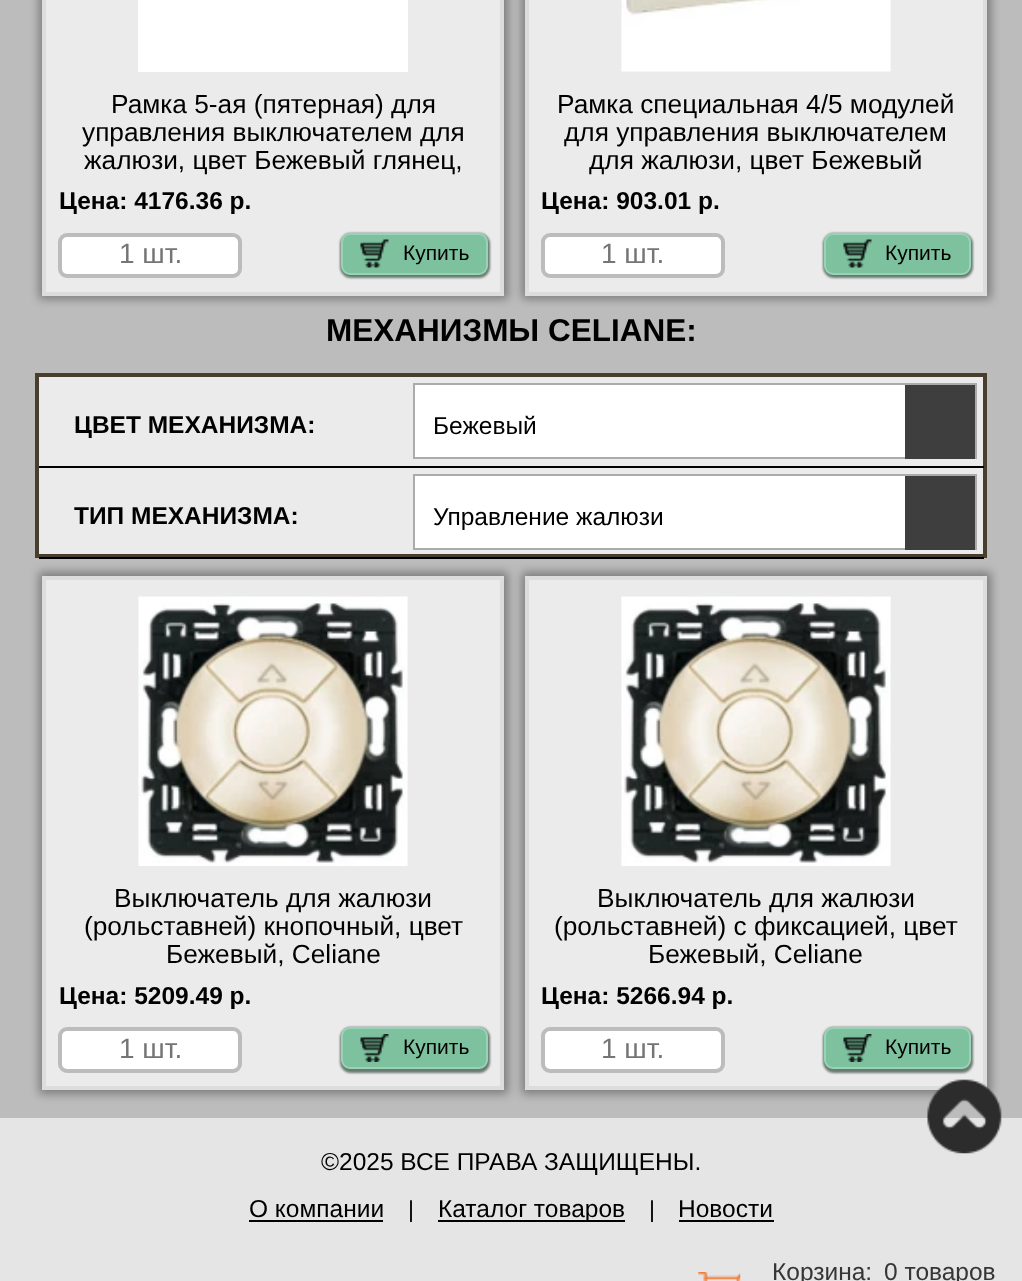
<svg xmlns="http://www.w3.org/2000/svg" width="1022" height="1281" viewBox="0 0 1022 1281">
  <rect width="100%" height="100%" fill="#bcbcbc"/>
  <path d="M39 -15h469v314H39z" fill="#00000057" filter="blur(5px)"/>
  <path d="M44 -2h458v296H44z" fill="#ebebeb" stroke="#ddd" stroke-width="4"/>
  <path d="M138 0h270v72H138z" fill="#fff"/>
  <rect x="60" y="235" width="180" height="41" rx="7" fill="#fff" stroke="#bcbcbc" stroke-width="4"/>
  <rect x="340" y="233" width="150" height="45" rx="11" fill="#687a71" filter="blur(1px)"/>
  <rect x="342" y="234" width="145" height="40" rx="8" fill="#7dc19f" stroke="#99d3b6" stroke-width="2"/>
  <image x="360" y="239" width="29" height="29" href="img/1.png"/>
  <path d="M522 -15h469v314H522z" fill="#00000057" filter="blur(5px)"/>
  <path d="M527 -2h458v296H527z" fill="#ebebeb" stroke="#ddd" stroke-width="4"/>
  <image x="621" y="0" width="270" height="72" href="img/2.png"/>
  <rect x="543" y="235" width="180" height="41" rx="7" fill="#fff" stroke="#bcbcbc" stroke-width="4"/>
  <rect x="823" y="233" width="150" height="45" rx="11" fill="#687a71" filter="blur(1px)"/>
  <rect x="825" y="234" width="145" height="40" rx="8" fill="#7dc19f" stroke="#99d3b6" stroke-width="2"/>
  <image x="843" y="239" width="29" height="29" href="img/3.png"/>
  <path d="M37 375h948v181H37z" fill="#ebebeb" stroke="#493d2d" stroke-width="4"/>
  <path d="M39 466h945v2H39z" fill="#000"/>
  <path d="M415 385h490v72H415z" fill="#fff"/>
  <path d="M414 384h562v74H414z" fill="none" stroke="#ababab" stroke-width="2"/>
  <path d="M905 385h70v74H905z" fill="#3e3e3e"/>
  <path d="M39 557h945v2H39z" fill="#000"/>
  <path d="M415 476h490v72H415z" fill="#fff"/>
  <path d="M414 475h562v74H414z" fill="none" stroke="#ababab" stroke-width="2"/>
  <path d="M905 476h70v74H905z" fill="#3e3e3e"/>
  <path d="M39 572h469v522H39z" fill="#00000057" filter="blur(5px)"/>
  <path d="M44 578h458v510H44z" fill="#ebebeb" stroke="#ddd" stroke-width="4"/>
  <image x="138" y="596" width="270" height="270" href="img/4.png"/>
  <rect x="60" y="1029" width="180" height="42" rx="7" fill="#fff" stroke="#bcbcbc" stroke-width="4"/>
  <rect x="340" y="1027" width="150" height="46" rx="11" fill="#687a71" filter="blur(1px)"/>
  <rect x="342" y="1028" width="145" height="40" rx="8" fill="#7dc19f" stroke="#99d3b6" stroke-width="2"/>
  <image x="360" y="1034" width="29" height="28" href="img/5.png"/>
  <path d="M522 572h469v522H522z" fill="#00000057" filter="blur(5px)"/>
  <path d="M527 578h458v510H527z" fill="#ebebeb" stroke="#ddd" stroke-width="4"/>
  <image x="621" y="596" width="270" height="270" href="img/6.png"/>
  <rect x="543" y="1029" width="180" height="42" rx="7" fill="#fff" stroke="#bcbcbc" stroke-width="4"/>
  <rect x="823" y="1027" width="150" height="46" rx="11" fill="#687a71" filter="blur(1px)"/>
  <rect x="825" y="1028" width="145" height="40" rx="8" fill="#7dc19f" stroke="#99d3b6" stroke-width="2"/>
  <image x="843" y="1034" width="29" height="28" href="img/7.png"/>
  <path d="M0 1118h1022v163H0z" fill="#e5e5e5"/>
  <image x="927" y="1079" width="75" height="75" href="img/8.png"/>
  <path d="M249 1220h134v2H249z" fill="#000"/>
  <path d="M438 1220h187v2H438z" fill="#000"/>
  <path d="M679 1220h95v2H679z" fill="#000"/>
  <image x="698" y="1272" width="43" height="9" href="img/9.png"/>
  <g font-family="Liberation Sans" font-size="26.25" fill="#000">
    <text x="111" y="113">Рамка 5-ая (пятерная) для</text>
    <text x="82" y="141">управления выключателем для</text>
    <text x="84" y="169">жалюзи, цвет Бежевый глянец,</text>
  </g>
  <text x="59" y="209" font-family="Liberation Sans" font-size="24.5" font-weight="bold" fill="#000">Цена: 4176.36 р.</text>
  <text x="119" y="263" font-family="Liberation Sans" font-size="28" fill="#757575">1 шт.</text>
  <text x="403" y="260" font-family="Liberation Sans" font-size="21" fill="#000">Купить</text>
  <g font-family="Liberation Sans" font-size="26.25" fill="#000">
    <text x="557" y="113">Рамка специальная 4/5 модулей</text>
    <text x="564" y="141">для управления выключателем</text>
    <text x="589" y="169">для жалюзи, цвет Бежевый</text>
  </g>
  <text x="541" y="209" font-family="Liberation Sans" font-size="24.5" font-weight="bold" fill="#000">Цена: 903.01 р.</text>
  <text x="601" y="263" font-family="Liberation Sans" font-size="28" fill="#757575">1 шт.</text>
  <text x="885" y="260" font-family="Liberation Sans" font-size="21" fill="#000">Купить</text>
  <text x="326" y="341" font-family="Liberation Sans" font-size="31.5" font-weight="bold" fill="#000">МЕХАНИЗМЫ CELIANE:</text>
  <text x="74" y="433" font-family="Liberation Sans" font-size="24.5" font-weight="bold" fill="#000">ЦВЕТ МЕХАНИЗМА:</text>
  <text x="433" y="434" font-family="Liberation Sans" font-size="24.5" fill="#000">Бежевый</text>
  <text x="74" y="524" font-family="Liberation Sans" font-size="24.5" font-weight="bold" fill="#000">ТИП МЕХАНИЗМА:</text>
  <text x="433" y="525" font-family="Liberation Sans" font-size="24.5" fill="#000">Управление жалюзи</text>
  <g font-family="Liberation Sans" font-size="26.25" fill="#000">
    <text x="114" y="907">Выключатель для жалюзи</text>
    <text x="84" y="935">(рольставней) кнопочный, цвет</text>
    <text x="166" y="963">Бежевый, Celiane</text>
  </g>
  <text x="59" y="1004" font-family="Liberation Sans" font-size="24.5" font-weight="bold" fill="#000">Цена: 5209.49 р.</text>
  <text x="119" y="1058" font-family="Liberation Sans" font-size="28" fill="#757575">1 шт.</text>
  <text x="403" y="1054" font-family="Liberation Sans" font-size="21" fill="#000">Купить</text>
  <g font-family="Liberation Sans" font-size="26.25" fill="#000">
    <text x="597" y="907">Выключатель для жалюзи</text>
    <text x="554" y="935">(рольставней) с фиксацией, цвет</text>
    <text x="648" y="963">Бежевый, Celiane</text>
  </g>
  <text x="541" y="1004" font-family="Liberation Sans" font-size="24.5" font-weight="bold" fill="#000">Цена: 5266.94 р.</text>
  <text x="601" y="1058" font-family="Liberation Sans" font-size="28" fill="#757575">1 шт.</text>
  <text x="885" y="1054" font-family="Liberation Sans" font-size="21" fill="#000">Купить</text>
  <g font-family="Liberation Sans" font-size="24.5" fill="#000">
    <text x="321" y="1170">©2025 ВСЕ ПРАВА ЗАЩИЩЕНЫ.</text>
    <text x="249" y="1217">О компании</text>
  </g>
  <text x="408" y="1217" font-family="Liberation Sans" font-size="23" fill="#000">|</text>
  <text x="438" y="1217" font-family="Liberation Sans" font-size="24.5" fill="#000">Каталог товаров</text>
  <text x="649" y="1217" font-family="Liberation Sans" font-size="23" fill="#000">|</text>
  <text x="678" y="1217" font-family="Liberation Sans" font-size="24.5" fill="#000">Новости</text>
  <g font-family="Liberation Sans" font-size="24.5" fill="#363636">
    <text x="772" y="1280">Корзина:</text>
    <text x="884" y="1280">0 товаров</text>
  </g>
</svg>
